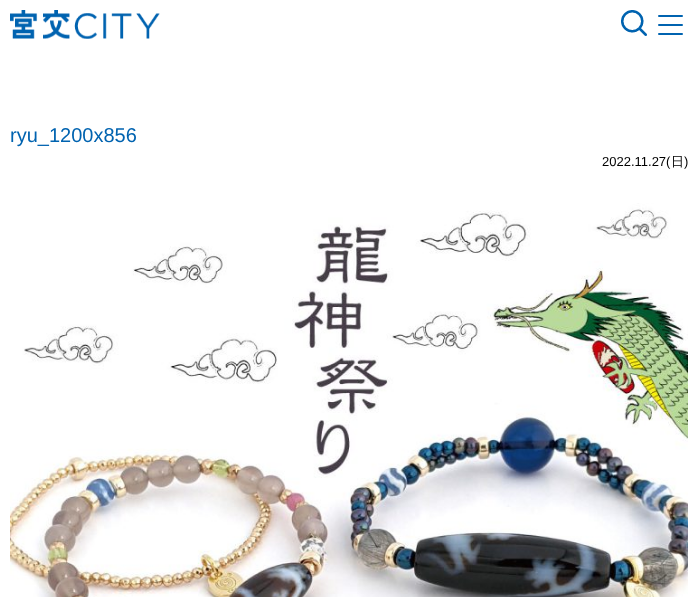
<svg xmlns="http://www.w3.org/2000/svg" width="698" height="597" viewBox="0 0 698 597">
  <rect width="100%" height="100%" fill="#fff"/>
  <image x="10" y="10" width="150" height="29" href="img/1.png"/>
  <image x="621" y="10" width="26" height="26" href="img/2.png"/>
  <rect x="658" y="15" width="25" height="2" rx="1" fill="#0063b0"/>
  <rect x="658" y="24" width="25" height="2" rx="1" fill="#0063b0"/>
  <rect x="658" y="33" width="25" height="2" rx="1" fill="#0063b0"/>
  <image x="10" y="203" width="678" height="394" href="img/3.png"/>
  <text x="10" y="142" font-family="Liberation Sans" font-size="20" fill="#0063b0">ryu_1200x856</text>
  <text x="602" y="166" font-family="Liberation Sans" font-size="13" fill="#000">2022.11.27(</text>
  <text x="671" y="166" font-family="WenQuanYi Zen Hei" font-size="13" font-weight="500" fill="#000">日</text>
  <text x="684" y="166" font-family="Liberation Sans" font-size="13" fill="#000">)</text>
</svg>
